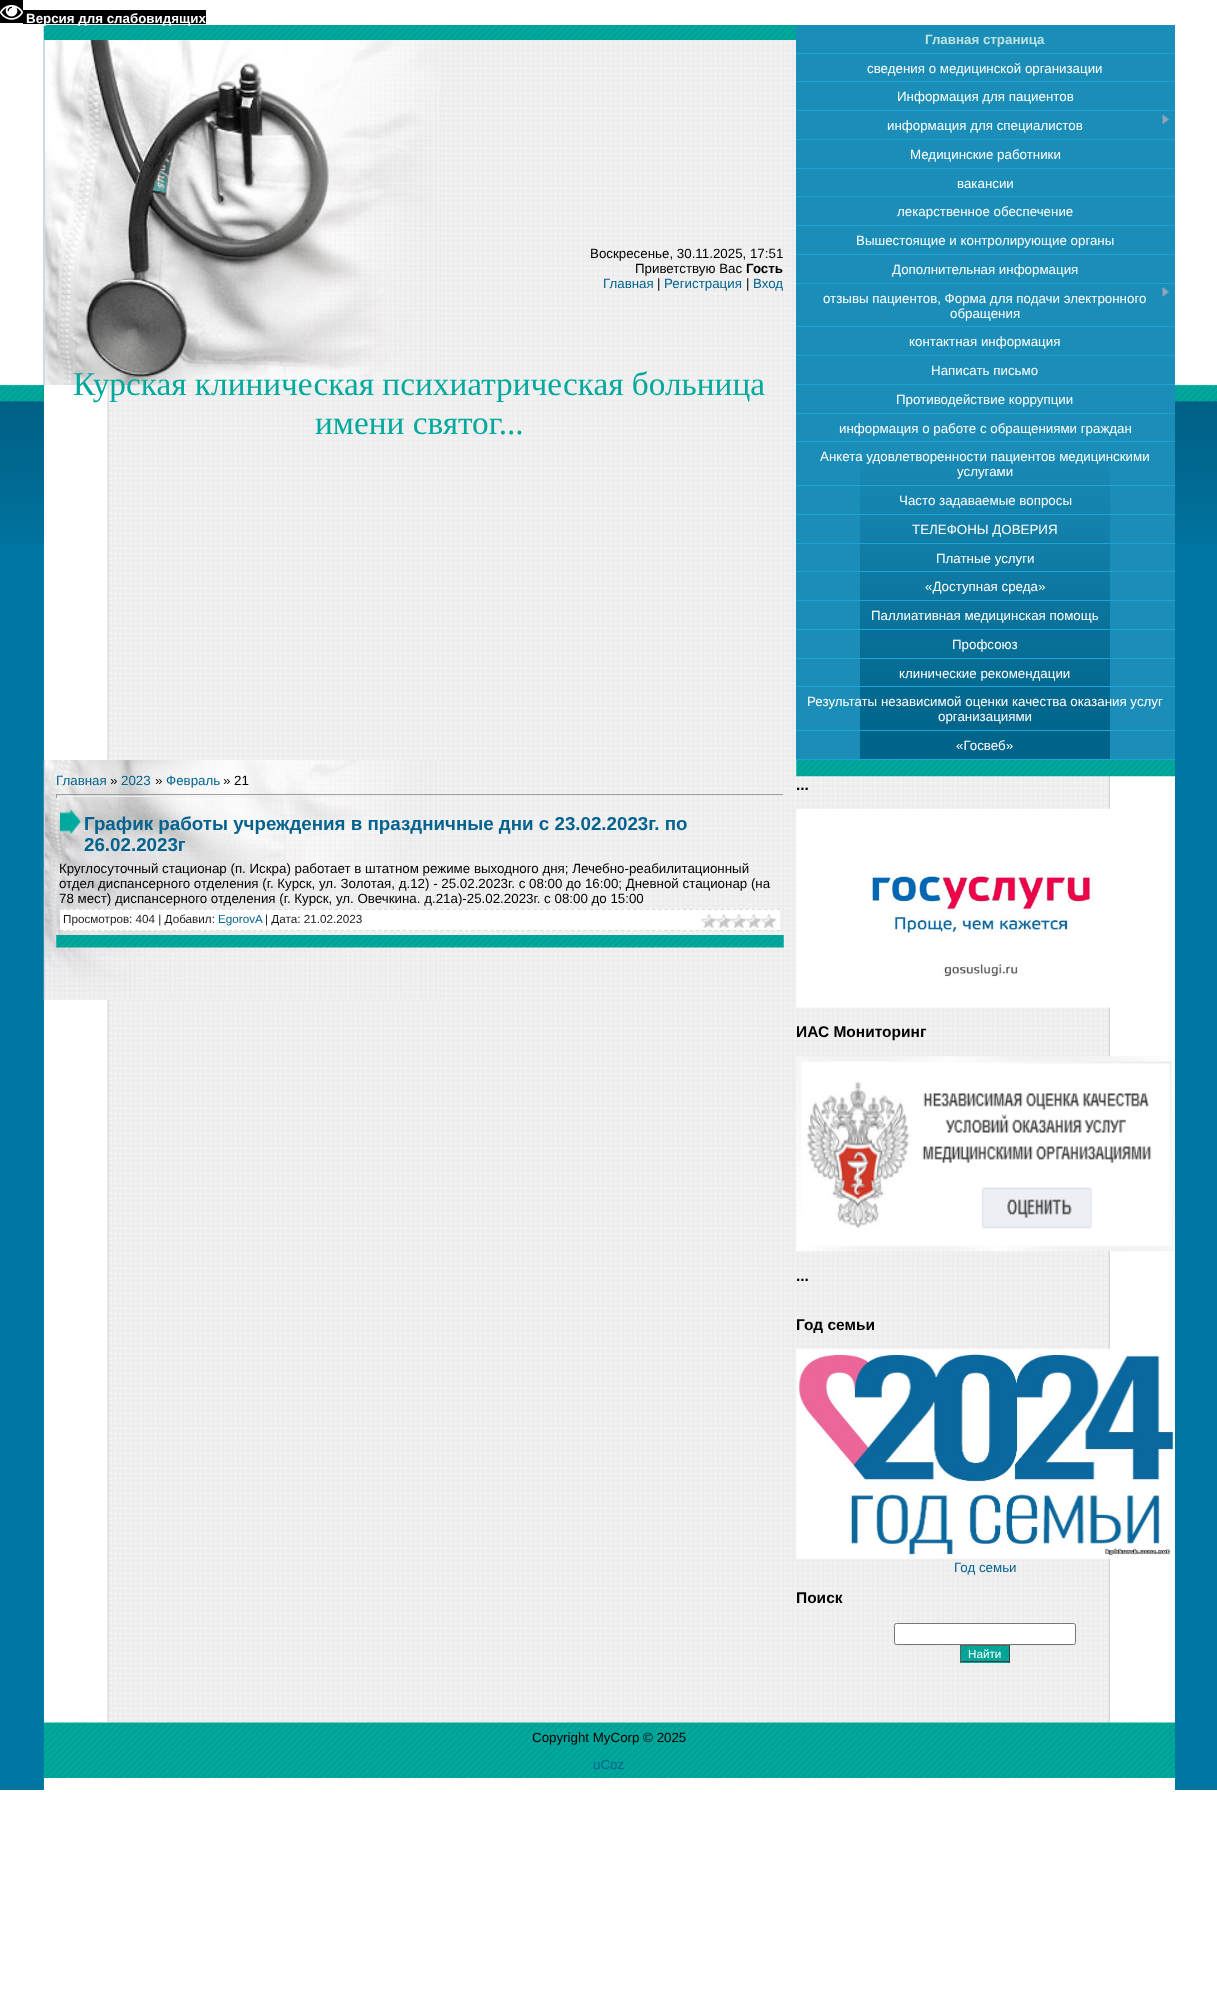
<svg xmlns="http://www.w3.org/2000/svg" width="1217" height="2006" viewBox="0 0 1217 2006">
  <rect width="100%" height="100%" fill="#fff"/>
  <path d="M0 0h23v23H0z" fill="#000"/>
  <image x="0" y="4" width="23" height="16" href="img/1.png"/>
  <path d="M23 10h3v15H23z" fill="#000"/>
  <path d="M26 10h180v14H26z" fill="#000"/>
  <path d="M23 24h4v1H23z" fill="#fff"/>
  <image x="107" y="40" width="1003" height="1683" href="img/2.png"/>
  <path d="M0 40h44v1750H0z" fill="#0076a3"/>
  <image x="0" y="40" width="44" height="504" href="img/3.png"/>
  <image x="43" y="40" width="398" height="345" href="img/4.png"/>
  <path d="M1175 544h42v1246H1175z" fill="#0076a3"/>
  <image x="1175" y="40" width="42" height="504" href="img/5.png"/>
  <image x="43" y="25" width="753" height="15" href="img/6.png"/>
  <path d="M796 25h379v734H796z" fill="#1a8db9"/>
  <image x="860" y="458" width="250" height="301" href="img/7.png"/>
  <path d="M796 53h379v1H796z" fill="#1ea3d6"/>
  <path d="M796 81h379v1H796z" fill="#1ea3d6"/>
  <path d="M796 110h379v1H796z" fill="#1ea3d6"/>
  <path d="M796 139h379v1H796z" fill="#1ea3d6"/>
  <image x="1162" y="115" width="7" height="9" href="img/8.png"/>
  <path d="M796 168h379v1H796z" fill="#1ea3d6"/>
  <path d="M796 196h379v1H796z" fill="#1ea3d6"/>
  <path d="M796 225h379v1H796z" fill="#1ea3d6"/>
  <path d="M796 254h379v1H796z" fill="#1ea3d6"/>
  <path d="M796 283h379v1H796z" fill="#1ea3d6"/>
  <path d="M796 326h379v1H796z" fill="#1ea3d6"/>
  <image x="1162" y="287" width="7" height="10" href="img/9.png"/>
  <path d="M796 355h379v1H796z" fill="#1ea3d6"/>
  <path d="M796 384h379v1H796z" fill="#1ea3d6"/>
  <path d="M796 413h379v1H796z" fill="#1ea3d6"/>
  <path d="M796 441h379v1H796z" fill="#1ea3d6"/>
  <path d="M796 485h379v1H796z" fill="#1ea3d6"/>
  <path d="M796 514h379v1H796z" fill="#1ea3d6"/>
  <path d="M796 543h379v1H796z" fill="#1ea3d6"/>
  <path d="M796 571h379v1H796z" fill="#1ea3d6"/>
  <path d="M796 600h379v1H796z" fill="#1ea3d6"/>
  <path d="M796 629h379v1H796z" fill="#1ea3d6"/>
  <path d="M796 658h379v1H796z" fill="#1ea3d6"/>
  <path d="M796 686h379v1H796z" fill="#1ea3d6"/>
  <path d="M796 730h379v1H796z" fill="#1ea3d6"/>
  <path d="M796 759h379v1H796z" fill="#1ea3d6"/>
  <image x="43" y="760" width="398" height="240" href="img/10.png"/>
  <path d="M56 794h728v1H56z" fill="#9f9f9f"/>
  <path d="M783 794h1v4H783z" fill="#eee"/>
  <path d="M56 796h385v1H56z" fill="#eee"/>
  <path d="M56 794h1v4H56z" fill="#9f9f9f"/>
  <image x="56" y="935" width="728" height="13" href="img/11.png"/>
  <image x="60" y="808" width="22" height="27" href="img/12.png"/>
  <path d="M60 909h720v22H60z" fill="#fff"/>
  <path d="M60 909.5H780" fill="none" stroke="#ddd" stroke-width="1.2" stroke-dasharray="3.75 2.48"/>
  <path d="M60 930.5H780" fill="none" stroke="#ddd" stroke-width="1.2" stroke-dasharray="3.75 2.48"/>
  <image x="701" y="914" width="76" height="15" href="img/13.png"/>
  <image x="796" y="760" width="379" height="17" href="img/14.png"/>
  <image x="796" y="808" width="314" height="200" href="img/15.png"/>
  <image x="796" y="1056" width="379" height="196" href="img/16.png"/>
  <image x="796" y="1348" width="379" height="211" href="img/17.png"/>
  <rect x="894.5" y="1623.5" width="181" height="21" rx="2" fill="#fff" stroke="#767676"/>
  <path d="M961 1662h48v1H961z" fill="#00a99d"/>
  <image x="961" y="1646" width="48" height="17" href="img/18.png"/>
  <path d="M960 1645h50v1H960z" fill="#615e58"/>
  <path d="M1009 1645h1v18H1009z" fill="#413f3b"/>
  <path d="M960 1661h50v1H960z" fill="#413f3b"/>
  <path d="M960 1645h1v18H960z" fill="#615e58"/>
  <image x="43" y="1722" width="1132" height="68" href="img/19.png"/>
  <path d="M44 1778h1131v12H44z" fill="#fff"/>
  <text x="26" y="23" font-family="Liberation Sans" font-size="13.33" font-weight="bold" fill="#fff">Версия для слабовидящих</text>
  <g font-family="Liberation Sans" font-size="13.33" fill="#000">
    <text x="590" y="258">Воскресенье, 30.11.2025, 17:51</text>
    <text x="635" y="273">Приветствую Вас</text>
  </g>
  <text x="746" y="273" font-family="Liberation Sans" font-size="13.33" font-weight="bold" fill="#000">Гость</text>
  <text x="603" y="288" font-family="Liberation Sans" font-size="13.33" fill="#04638e">Главная</text>
  <text x="657" y="288" font-family="Liberation Sans" font-size="13.33" fill="#000">|</text>
  <text x="664" y="288" font-family="Liberation Sans" font-size="13.33" fill="#04638e">Регистрация</text>
  <text x="746" y="288" font-family="Liberation Sans" font-size="13.33" fill="#000">|</text>
  <text x="753" y="288" font-family="Liberation Sans" font-size="13.33" fill="#04638e">Вход</text>
  <g font-family="Liberation Serif" font-size="33.3" fill="#00a99d">
    <text x="73" y="395">Курская клиническая психиатрическая больница</text>
    <text x="315" y="434">имени святог...</text>
  </g>
  <text x="925" y="44" font-family="Liberation Sans" font-size="13.33" font-weight="bold" fill="#bce2df">Главная страница</text>
  <g font-family="Liberation Sans" font-size="13.33" fill="#fff">
    <text x="867" y="73">сведения о медицинской организации</text>
    <text x="897" y="101">Информация для пациентов</text>
    <text x="887" y="130">информация для специалистов</text>
    <text x="910" y="159">Медицинские работники</text>
    <text x="957" y="188">вакансии</text>
    <text x="897" y="216">лекарственное обеспечение</text>
    <text x="856" y="245">Вышестоящие и контролирующие органы</text>
    <text x="892" y="274">Дополнительная информация</text>
    <text x="823" y="303">отзывы пациентов, Форма для подачи электронного</text>
    <text x="950" y="318">обращения</text>
    <text x="909" y="346">контактная информация</text>
    <text x="931" y="375">Написать письмо</text>
    <text x="896" y="404">Противодействие коррупции</text>
    <text x="839" y="433">информация о работе с обращениями граждан</text>
    <text x="820" y="461">Анкета удовлетворенности пациентов медицинскими</text>
    <text x="957" y="476">услугами</text>
    <text x="899" y="505">Часто задаваемые вопросы</text>
    <text x="912" y="534">ТЕЛЕФОНЫ ДОВЕРИЯ</text>
    <text x="936" y="563">Платные услуги</text>
    <text x="925" y="591">«Доступная среда»</text>
    <text x="871" y="620">Паллиативная медицинская помощь</text>
    <text x="952" y="649">Профсоюз</text>
    <text x="899" y="678">клинические рекомендации</text>
    <text x="807" y="706">Результаты независимой оценки качества оказания услуг</text>
    <text x="938" y="721">организациями</text>
    <text x="956" y="750">«Госвеб»</text>
  </g>
  <text x="56" y="785" font-family="Liberation Sans" font-size="13.33" fill="#04638e">Главная</text>
  <text x="110" y="785" font-family="Liberation Sans" font-size="13.33" fill="#000">»</text>
  <text x="121" y="785" font-family="Liberation Sans" font-size="13.33" fill="#04638e">2023</text>
  <text x="155" y="785" font-family="Liberation Sans" font-size="13.33" fill="#000">»</text>
  <text x="166" y="785" font-family="Liberation Sans" font-size="13.33" fill="#04638e">Февраль</text>
  <text x="223" y="785" font-family="Liberation Sans" font-size="13.33" fill="#000">» 21</text>
  <g font-family="Liberation Sans" font-size="18.75" font-weight="bold" fill="#04638e">
    <text x="84" y="830">График работы учреждения в праздничные дни с 23.02.2023г. по</text>
    <text x="84" y="851">26.02.2023г</text>
  </g>
  <g font-family="Liberation Sans" font-size="13.33" fill="#000">
    <text x="59" y="873">Круглосуточный стационар (п. Искра) работает в штатном режиме выходного дня; Лечебно-реабилитационный</text>
    <text x="59" y="888">отдел диспансерного отделения (г. Курск, ул. Золотая, д.12) - 25.02.2023г. с 08:00 до 16:00; Дневной стационар (на</text>
    <text x="59" y="903">78 мест) диспансерного отделения (г. Курск, ул. Овечкина. д.21а)-25.02.2023г. с 08:00 до 15:00</text>
  </g>
  <text x="63" y="923" font-family="Liberation Sans" font-size="11.7" fill="#1a1a1a">Просмотров: 404 | Добавил:</text>
  <text x="218" y="923" font-family="Liberation Sans" font-size="11.7" fill="#04638e">EgorovA</text>
  <text x="265" y="923" font-family="Liberation Sans" font-size="11.7" fill="#1a1a1a">| Дата: 21.02.2023</text>
  <g font-family="Liberation Sans" font-size="15.5" font-weight="bold" fill="#000">
    <text x="796" y="790">...</text>
    <text x="796" y="1037">ИАС Мониторинг</text>
    <text x="796" y="1281">...</text>
    <text x="796" y="1330">Год семьи</text>
  </g>
  <text x="954" y="1572" font-family="Liberation Sans" font-size="13.33" fill="#04638e">Год семьи</text>
  <text x="796" y="1603" font-family="Liberation Sans" font-size="15.5" font-weight="bold" fill="#000">Поиск</text>
  <text x="968" y="1658" font-family="Liberation Sans" font-size="11.7" fill="#fff">Найти</text>
  <text x="532" y="1742" font-family="Liberation Sans" font-size="13.33" fill="#000">Copyright MyCorp © 2025</text>
  <text x="593" y="1769" font-family="Liberation Sans" font-size="13.33" fill="#04638e">uCoz</text>
</svg>
